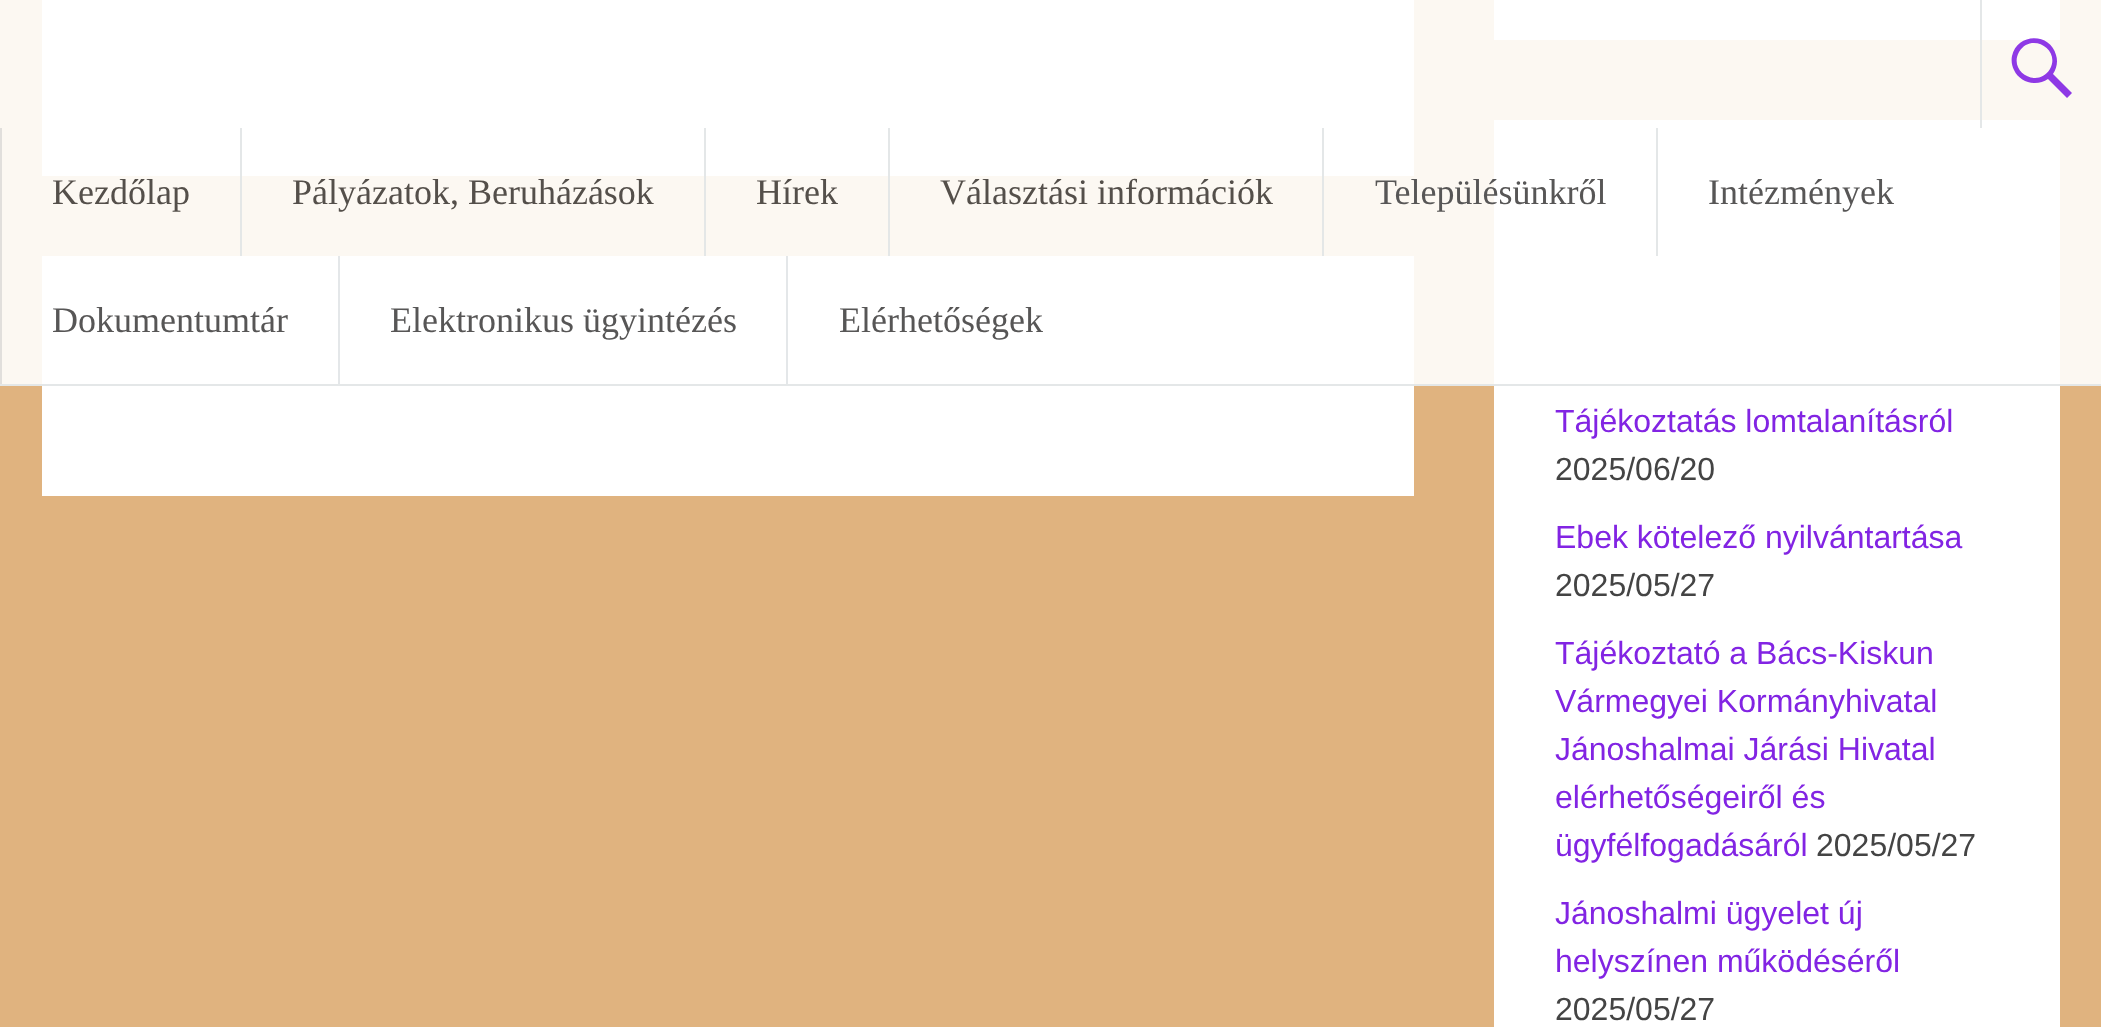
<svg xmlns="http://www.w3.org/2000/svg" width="2101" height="1027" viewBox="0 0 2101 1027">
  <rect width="100%" height="100%" fill="#e0b37f"/>
  <path d="M42 0h1372v176H42z" fill="#fff"/>
  <path d="M42 256h1372v240H42z" fill="#fff"/>
  <path d="M1494 0h566v40H1494z" fill="#fff"/>
  <path d="M1494 120h566v907H1494z" fill="#fff"/>
  <path d="M0 0h2101v386H0z" fill="#ffffffe6"/>
  <path d="M0 384h2101v2H0z" fill="#e1e4e6e6"/>
  <path d="M1980 0h2v128H1980z" fill="#e1e4e6e6"/>
  <path d="M2072 93L2067 98L2048 79C2037 87 2020 83 2014 70C2012 66 2011 61 2012 56C2017 33 2050 32 2056 55C2058 61 2057 68 2053 74ZM2019 52C2008 72 2038 89 2050 69C2061 49 2031 32 2019 52Z" fill="#8224e3e6"/>
  <path d="M0 128h2v256H0z" fill="#e1dfdc"/>
  <path d="M240 128h2v128H240z" fill="#e1e4e6e6"/>
  <path d="M704 128h2v128H704z" fill="#e1e4e6e6"/>
  <path d="M888 128h2v128H888z" fill="#e1e4e6e6"/>
  <path d="M1322 128h2v128H1322z" fill="#e1e4e6e6"/>
  <path d="M1656 128h2v128H1656z" fill="#e1e4e6e6"/>
  <path d="M338 256h2v128H338z" fill="#e4e7e9"/>
  <path d="M786 256h2v128H786z" fill="#e4e7e9"/>
  <g font-family="Liberation Serif" font-size="36" fill="#544f4a">
    <text x="52" y="204">Kezdőlap</text>
    <text x="292" y="204">Pályázatok, Beruházások</text>
    <text x="756" y="204">Hírek</text>
    <text x="940" y="204">Választási információk</text>
  </g>
  <g font-family="Liberation Serif" font-size="36" fill="#575656">
    <text x="1375" y="204">Településünkről</text>
    <text x="1708" y="204">Intézmények</text>
    <text x="52" y="332">Dokumentumtár</text>
    <text x="390" y="332">Elektronikus ügyintézés</text>
    <text x="839" y="332">Elérhetőségek</text>
  </g>
  <text x="1555" y="432" font-family="Liberation Sans" font-size="32" fill="#8224e3">Tájékoztatás lomtalanításról</text>
  <text x="1555" y="480" font-family="Liberation Sans" font-size="32" fill="#444">2025/06/20</text>
  <text x="1555" y="548" font-family="Liberation Sans" font-size="32" fill="#8224e3">Ebek kötelező nyilvántartása</text>
  <text x="1555" y="596" font-family="Liberation Sans" font-size="32" fill="#444">2025/05/27</text>
  <g font-family="Liberation Sans" font-size="32" fill="#8224e3">
    <text x="1555" y="664">Tájékoztató a Bács-Kiskun</text>
    <text x="1555" y="712">Vármegyei Kormányhivatal</text>
    <text x="1555" y="760">Jánoshalmai Járási Hivatal</text>
    <text x="1555" y="808">elérhetőségeiről és</text>
    <text x="1555" y="856">ügyfélfogadásáról</text>
  </g>
  <text x="1816" y="856" font-family="Liberation Sans" font-size="32" fill="#444">2025/05/27</text>
  <g font-family="Liberation Sans" font-size="32" fill="#8224e3">
    <text x="1555" y="924">Jánoshalmi ügyelet új</text>
    <text x="1555" y="972">helyszínen működéséről</text>
  </g>
  <text x="1555" y="1020" font-family="Liberation Sans" font-size="32" fill="#444">2025/05/27</text>
</svg>
